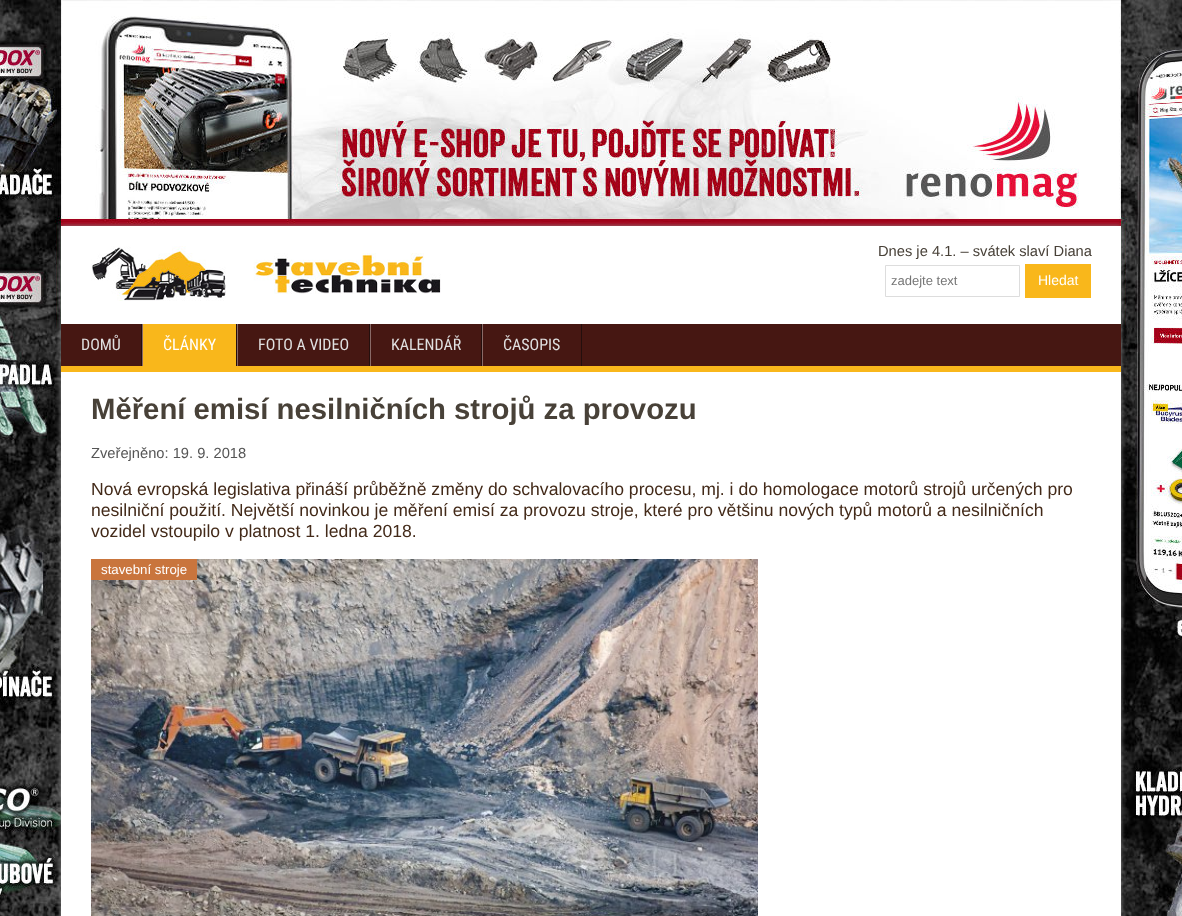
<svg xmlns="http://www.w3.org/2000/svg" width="1182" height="916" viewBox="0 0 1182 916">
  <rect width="100%" height="100%" fill="#fff"/>
  <image x="0" y="0" width="1182" height="916" href="img/1.png"/>
  <path d="M61 226h1060v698H61z" fill="#888" filter="blur(2.5px)"/>
  <path d="M61 226h1060v690H61z" fill="#fff"/>
  <image x="91" y="246" width="350" height="55" href="img/2.png"/>
  <path d="M885.5 265.5h134v31H885.5z" fill="none" stroke="#ddd"/>
  <path d="M1025 264h66v34H1025z" fill="#f9b71b"/>
  <path d="M61 324h1060v42H61z" fill="#461712"/>
  <path d="M61 366h1060v6H61z" fill="#f9b71b"/>
  <path d="M141 324h1v42H141z" fill="#240f0d"/>
  <path d="M143 324h93v42H143z" fill="#f9b71b"/>
  <path d="M236 324h1v42H236z" fill="#240f0d"/>
  <path d="M142 324h1v42H142z" fill="#896a67"/>
  <path d="M369 324h1v42H369z" fill="#240f0d"/>
  <path d="M237 324h1v42H237z" fill="#896a67"/>
  <path d="M481 324h1v42H481z" fill="#240f0d"/>
  <path d="M370 324h1v42H370z" fill="#896a67"/>
  <path d="M581 324h1v42H581z" fill="#240f0d"/>
  <path d="M482 324h1v42H482z" fill="#896a67"/>
  <image x="91" y="559" width="667" height="357" href="img/3.png"/>
  <path d="M91 559h106v21H91z" fill="#c9753d"/>
  <text x="878" y="256" font-family="Liberation Sans" font-size="14.7" fill="#484138">Dnes je 4.1. – svátek slaví Diana</text>
  <text x="891" y="285" font-family="Liberation Sans" font-size="13" fill="#757575">zadejte text</text>
  <text x="1038" y="285" font-family="Liberation Sans" font-size="14" fill="#fff">Hledat</text>
  <text x="81" y="350" font-family="Roboto Condensed" font-size="16" fill="#e0e0e0">DOMŮ</text>
  <text x="163" y="350" font-family="Roboto Condensed" font-size="16" fill="#fff">ČLÁNKY</text>
  <g font-family="Roboto Condensed" font-size="16" fill="#e0e0e0">
    <text x="258" y="350">FOTO A VIDEO</text>
    <text x="391" y="350">KALENDÁŘ</text>
    <text x="503" y="350">ČASOPIS</text>
  </g>
  <text x="91" y="419" font-family="Liberation Sans" font-size="29.3" font-weight="bold" fill="#484138">Měření emisí nesilničních strojů za provozu</text>
  <text x="91" y="458" font-family="Liberation Sans" font-size="14.7" fill="#555">Zveřejněno: 19. 9. 2018</text>
  <g font-family="Liberation Sans" font-size="17.6" fill="#432a19">
    <text x="91" y="495">Nová evropská legislativa přináší průběžně změny do schvalovacího procesu, mj. i do homologace motorů strojů určených pro</text>
    <text x="91" y="516">nesilniční použití. Největší novinkou je měření emisí za provozu stroje, které pro většinu nových typů motorů a nesilničních</text>
    <text x="91" y="537">vozidel vstoupilo v platnost 1. ledna 2018.</text>
  </g>
  <text x="101" y="574" font-family="Liberation Sans" font-size="13.25" fill="#fff">stavební stroje</text>
</svg>
